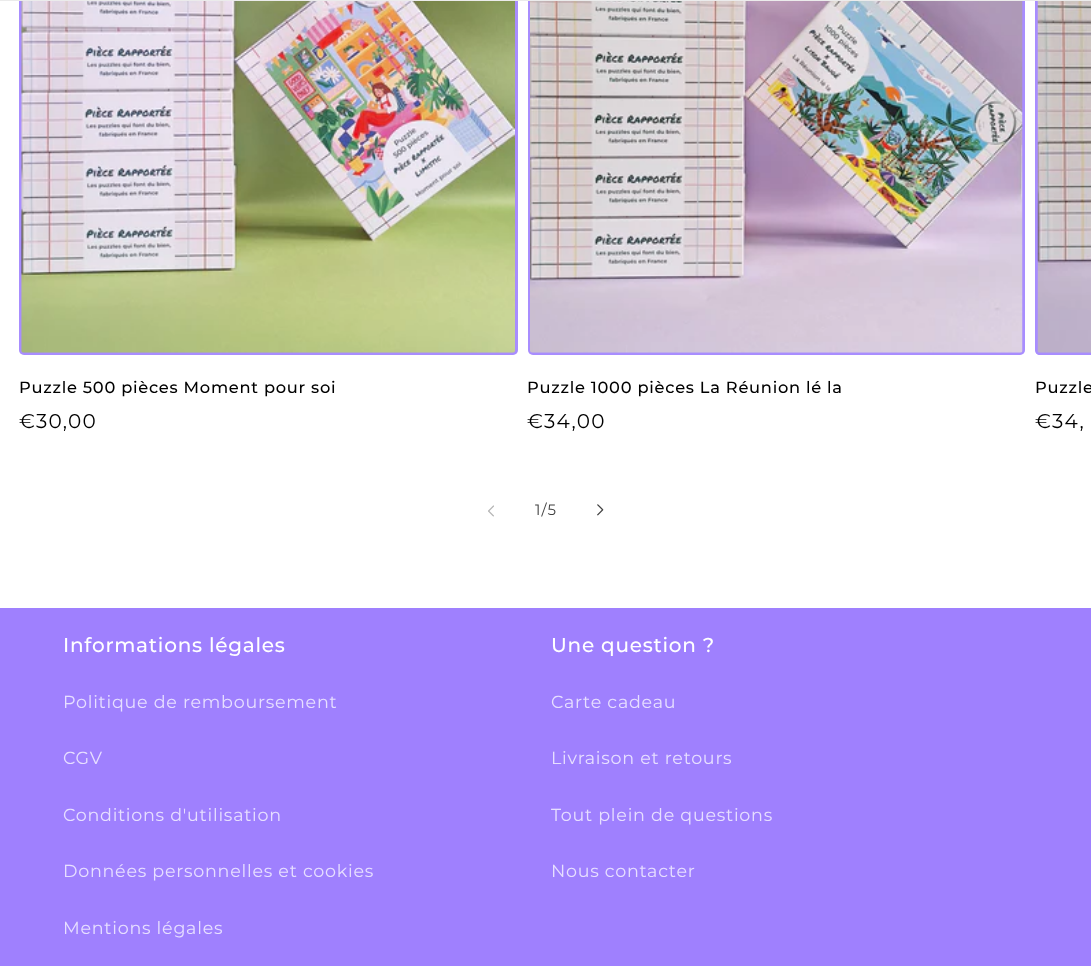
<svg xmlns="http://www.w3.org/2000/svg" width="1091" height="966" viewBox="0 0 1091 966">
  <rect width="100%" height="100%" fill="#fff"/>
  <rect x="19" y="-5" width="499" height="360" rx="5" fill="#9f80fe"/>
  <rect x="20.5" y="-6.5" width="496" height="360" rx="3.5" fill="none" stroke="#ffffff1a" stroke-width="3"/>
  <rect x="528" y="-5" width="497" height="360" rx="5" fill="#9f80fe"/>
  <rect x="529.5" y="-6.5" width="494" height="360" rx="3.5" fill="none" stroke="#ffffff1a" stroke-width="3"/>
  <path d="M1040-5H1091V355H1040C1037 355 1035 353 1035 350V0C1035-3 1037-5 1040-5Z" fill="#9f80fe"/>
  <rect x="1036.5" y="-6.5" width="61" height="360" rx="3.5" fill="none" stroke="#ffffff1a" stroke-width="3"/>
  <path d="M0 0h1091v1H0z" fill="#ebebeb"/>
  <image x="21" y="1" width="494" height="352" href="img/1.png"/>
  <image x="530" y="1" width="493" height="352" href="img/2.png"/>
  <image x="1037" y="1" width="54" height="352" href="img/3.png"/>
  <image x="488" y="505" width="6" height="12" href="img/4.png"/>
  <image x="597" y="504" width="7" height="12" href="img/5.png"/>
  <path d="M0 608h1091v358H0z" fill="#9f80fe"/>
  <text x="19" y="393" font-family="Montserrat" font-size="16.25" font-weight="500" letter-spacing="0.75" fill="#000">Puzzle 500 pièces Moment pour soi</text>
  <text x="19" y="428" font-family="Montserrat" font-size="20" letter-spacing="1.25" fill="#000">€30,00</text>
  <text x="527" y="393" font-family="Montserrat" font-size="16.25" font-weight="500" letter-spacing="0.75" fill="#000">Puzzle 1000 pièces La Réunion lé la</text>
  <text x="527" y="428" font-family="Montserrat" font-size="20" letter-spacing="1.25" fill="#000">€34,00</text>
  <text x="1035" y="393" font-family="Montserrat" font-size="16.25" font-weight="500" letter-spacing="0.75" fill="#000">Puzzle</text>
  <text x="1035" y="428" font-family="Montserrat" font-size="20" letter-spacing="1.25" fill="#000">€34,</text>
  <text x="535" y="515" font-family="Montserrat" font-size="15" letter-spacing="1" fill="#404040">1/5</text>
  <text x="63" y="652" font-family="Montserrat" font-size="20" font-weight="500" letter-spacing="0.75" fill="#fff">Informations légales</text>
  <g font-family="Montserrat" font-size="17.5" letter-spacing="0.75" fill="#e7dfff">
    <text x="63" y="708">Politique de remboursement</text>
    <text x="63" y="764">CGV</text>
    <text x="63" y="821">Conditions d'utilisation</text>
    <text x="63" y="877">Données personnelles et cookies</text>
    <text x="63" y="934">Mentions légales</text>
  </g>
  <text x="551" y="652" font-family="Montserrat" font-size="20" font-weight="500" letter-spacing="0.75" fill="#fff">Une question ?</text>
  <g font-family="Montserrat" font-size="17.5" letter-spacing="0.75" fill="#e7dfff">
    <text x="551" y="708">Carte cadeau</text>
    <text x="551" y="764">Livraison et retours</text>
    <text x="551" y="821">Tout plein de questions</text>
    <text x="551" y="877">Nous contacter</text>
  </g>
</svg>
